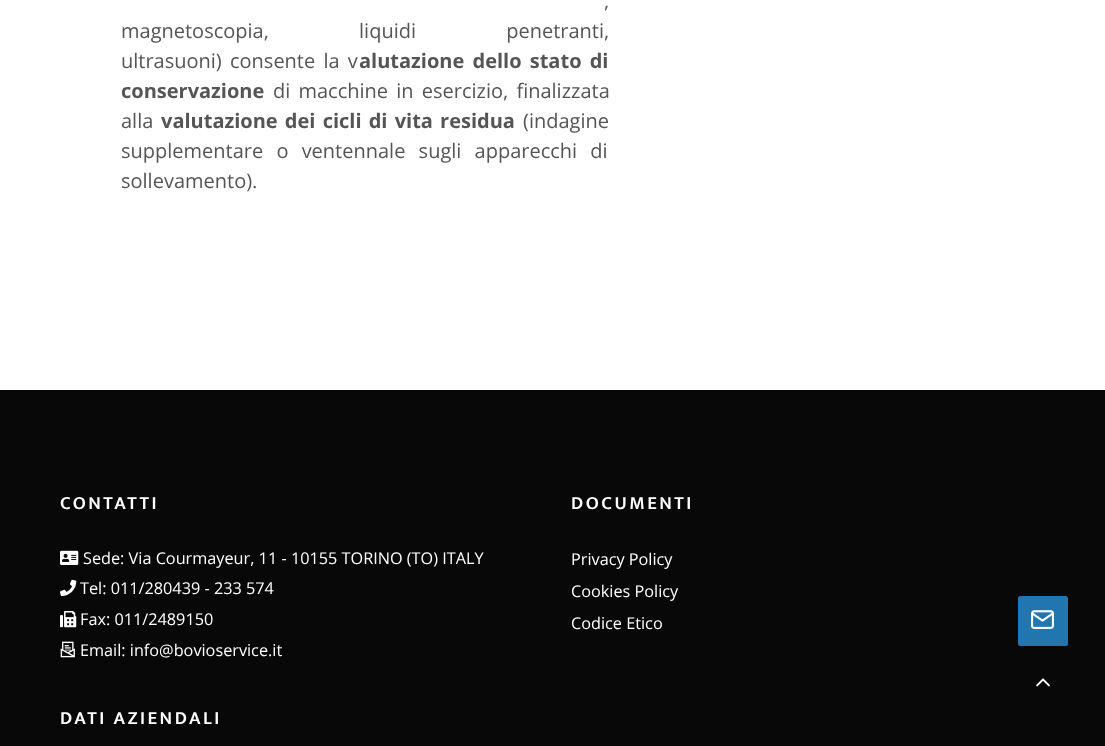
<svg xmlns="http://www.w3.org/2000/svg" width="1105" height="746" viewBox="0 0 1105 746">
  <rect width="100%" height="100%" fill="#fff"/>
  <path d="M0 390h1105v356H0z" fill="#080808"/>
  <image x="60" y="550" width="19" height="15" href="img/1.png"/>
  <image x="60" y="579" width="17" height="17" href="img/2.png"/>
  <image x="60" y="611" width="17" height="17" href="img/3.png"/>
  <image x="60" y="641" width="15" height="17" href="img/4.png"/>
  <rect x="1018" y="596" width="50" height="50" rx="2.5" fill="#2176af"/>
  <image x="1031" y="610" width="23" height="19" href="img/5.png"/>
  <image x="1036" y="678" width="14" height="9" href="img/6.png"/>
  <g font-family="Open Sans" font-size="20" fill="#555">
    <text x="604" y="8" word-spacing="35">,</text>
    <text x="121" y="38" word-spacing="85">magnetoscopia, liquidi penetranti,</text>
    <text x="121" y="68" word-spacing="3">ultrasuoni) consente la v</text>
  </g>
  <g font-family="Open Sans" font-size="20" font-weight="bold" fill="#555">
    <text x="359" y="68" word-spacing="3">alutazione dello stato di</text>
    <text x="121" y="98">conservazione</text>
  </g>
  <g font-family="Open Sans" font-size="20" fill="#555">
    <text x="273" y="98" word-spacing="3">di macchine in esercizio, finalizzata</text>
    <text x="121" y="128">alla</text>
  </g>
  <text x="161" y="128" word-spacing="2" font-family="Open Sans" font-size="20" font-weight="bold" fill="#555">valutazione dei cicli di vita residua</text>
  <g font-family="Open Sans" font-size="20" fill="#555">
    <text x="523" y="128">(indagine</text>
    <text x="121" y="158" word-spacing="8">supplementare o ventennale sugli apparecchi di</text>
    <text x="121" y="188">sollevamento).</text>
  </g>
  <text x="60" y="509" font-family="Mukta Vaani" font-size="18.75" font-weight="600" letter-spacing="2.5" fill="#fff">CONTATTI</text>
  <g font-family="Open Sans" font-size="16.25" fill="#fff">
    <text x="83" y="564">Sede: Via Courmayeur, 11 - 10155 TORINO (TO) ITALY</text>
    <text x="80" y="594">Tel: 011/280439 - 233 574</text>
    <text x="80" y="625">Fax: 011/2489150</text>
    <text x="80" y="656">Email: info@bovioservice.it</text>
  </g>
  <text x="571" y="509" font-family="Mukta Vaani" font-size="18.75" font-weight="600" letter-spacing="2.5" fill="#fff">DOCUMENTI</text>
  <g font-family="Open Sans" font-size="16.25" fill="#fff">
    <text x="571" y="565">Privacy Policy</text>
    <text x="571" y="597">Cookies Policy</text>
    <text x="571" y="629">Codice Etico</text>
  </g>
  <text x="60" y="724" font-family="Mukta Vaani" font-size="18.75" font-weight="600" letter-spacing="2.5" fill="#fff">DATI AZIENDALI</text>
</svg>
